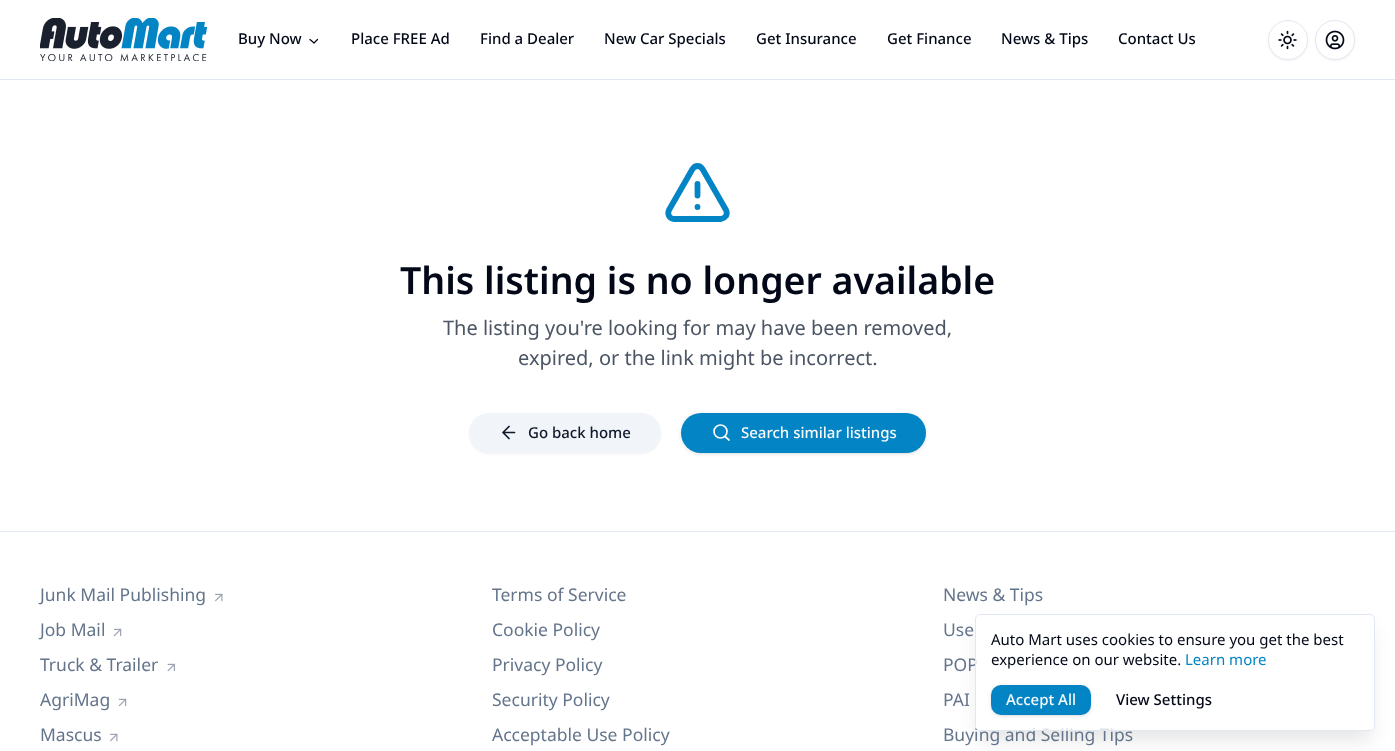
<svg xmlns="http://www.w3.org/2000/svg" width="1395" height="751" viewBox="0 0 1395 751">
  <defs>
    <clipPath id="clip1"><path d="M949 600H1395V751H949ZM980 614H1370C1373 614 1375 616 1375 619V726C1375 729 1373 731 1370 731H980C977 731 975 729 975 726V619C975 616 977 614 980 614Z" clip-rule="evenodd"/></clipPath>
  </defs>
  <rect width="100%" height="100%" fill="#fff"/>
  <path d="M0 79h1395v1H0z" fill="#e2e8f0"/>
  <image x="40" y="18" width="168" height="43" href="img/1.png"/>
  <path d="M310 39.5L314 43L317.5 39.5" fill="none" stroke="#020817" stroke-width="1.2" stroke-linecap="round" stroke-linejoin="round"/>
  <rect x="1268" y="21" width="40" height="40" rx="20" fill="#0000000d" filter="blur(1px)"/>
  <circle cx="1288" cy="40" r="19.5" fill="#fff" stroke="#e2e8f0"/>
  <image x="1278" y="30" width="19" height="20" href="img/2.png"/>
  <rect x="1315" y="21" width="40" height="40" rx="20" fill="#0000000d" filter="blur(1px)"/>
  <circle cx="1335" cy="40" r="19.5" fill="#fff" stroke="#e2e8f0"/>
  <image x="1325" y="30" width="20" height="20" href="img/3.png"/>
  <path d="M726 210L702.5 169C701.5 167.5 699.5 166 697.5 166C695.5 166 693.5 167.5 692.5 169L669 210C668 212 668 214 669 216C670 217.5 672 219 674 219H721C723 218.5 725 217.5 726 216C727 214 727 212 726 210" fill="none" stroke="#0284c5" stroke-width="5.8" stroke-linecap="round" stroke-linejoin="round"/>
  <path d="M697.5 184V195.5M697.5 207H697.5" fill="none" stroke="#0284c5" stroke-width="5.8" stroke-linecap="round" stroke-linejoin="round"/>
  <rect x="469" y="414" width="192" height="40" rx="20" fill="#0000000d" filter="blur(1px)"/>
  <rect x="469" y="413" width="192" height="40" rx="20" fill="#f1f5f9"/>
  <path d="M509 438.5L503 432.5L509 426.5M514.5 432.5H503" fill="none" stroke="#0f172a" stroke-width="1.7" stroke-linecap="round" stroke-linejoin="round"/>
  <rect x="683" y="415" width="242" height="38" rx="19" fill="#0000001a" filter="blur(1px)"/>
  <rect x="681" y="414" width="245" height="40" rx="20" fill="#0000001a" filter="blur(2px)"/>
  <rect x="681" y="413" width="245" height="40" rx="20" fill="#0284c5"/>
  <circle cx="720.5" cy="431.5" r="6.5" fill="none" stroke="#f8fafc" stroke-width="1.7"/>
  <path d="M729 440L725 436.5" fill="none" stroke="#f8fafc" stroke-width="1.7" stroke-linecap="round" stroke-linejoin="round"/>
  <path d="M0 531h1395v1H0z" fill="#e2e8f0"/>
  <image x="215" y="593" width="8" height="9" href="img/4.png"/>
  <image x="113" y="628" width="9" height="9" href="img/5.png"/>
  <image x="167" y="663" width="8" height="9" href="img/6.png"/>
  <image x="118" y="698" width="9" height="9" href="img/5.png"/>
  <image x="110" y="733" width="8" height="9" href="img/4.png"/>
  <g clip-path="url(#clip1)">
    <rect x="979" y="630" width="392" height="110" rx="1" fill="#0000001a" filter="blur(9.5px)"/>
  </g>
  <g font-family="Noto Sans" font-size="15" font-weight="500" fill="#020817">
    <text x="238" y="44">Buy Now</text>
    <text x="351" y="44">Place FREE Ad</text>
    <text x="480" y="44">Find a Dealer</text>
    <text x="604" y="44">New Car Specials</text>
    <text x="756" y="44">Get Insurance</text>
    <text x="887" y="44">Get Finance</text>
    <text x="1001" y="44">News &amp; Tips</text>
    <text x="1118" y="44">Contact Us</text>
  </g>
  <text x="400" y="294" font-family="Noto Sans" font-size="37.5" font-weight="600" fill="#020817">This listing is no longer available</text>
  <g font-family="Noto Sans" font-size="20" fill="#4b5563">
    <text x="443" y="335">The listing you're looking for may have been removed,</text>
    <text x="518" y="365">expired, or the link might be incorrect.</text>
  </g>
  <text x="528" y="438" font-family="Noto Sans" font-size="15" font-weight="500" fill="#0f172a">Go back home</text>
  <text x="741" y="438" font-family="Noto Sans" font-size="15" font-weight="500" fill="#f8fafc">Search similar listings</text>
  <g font-family="Noto Sans" font-size="17.5" fill="#64748b">
    <text x="40" y="601">Junk Mail Publishing</text>
    <text x="40" y="636">Job Mail</text>
    <text x="40" y="671">Truck &amp; Trailer</text>
    <text x="40" y="706">AgriMag</text>
    <text x="40" y="741">Mascus</text>
    <text x="492" y="601">Terms of Service</text>
    <text x="492" y="636">Cookie Policy</text>
    <text x="492" y="671">Privacy Policy</text>
    <text x="492" y="706">Security Policy</text>
    <text x="492" y="741">Acceptable Use Policy</text>
    <text x="943" y="601">News &amp; Tips</text>
    <text x="943" y="636">Use</text>
    <text x="943" y="671">POP</text>
    <text x="943" y="706">PAI</text>
    <text x="943" y="741">Buying and Selling Tips</text>
  </g>
  <rect x="975.5" y="614.5" width="399" height="116" rx="4.5" fill="#ffffffcc" stroke="#e2e8f0"/>
  <g font-family="Noto Sans" font-size="15" fill="#020817">
    <text x="991" y="645">Auto Mart uses cookies to ensure you get the best</text>
    <text x="991" y="665">experience on our website.</text>
  </g>
  <text x="1185" y="665" font-family="Noto Sans" font-size="15" fill="#0284c5">Learn more</text>
  <rect x="993" y="688" width="97" height="27" rx="9" fill="#0000001a" filter="blur(1px)"/>
  <rect x="991" y="686" width="100" height="30" rx="10" fill="#0000001a" filter="blur(2px)"/>
  <rect x="991" y="685" width="100" height="30" rx="10" fill="#0284c5"/>
  <text x="1006" y="705" font-family="Noto Sans" font-size="15" font-weight="500" fill="#f8fafc">Accept All</text>
  <text x="1116" y="705" font-family="Noto Sans" font-size="15" font-weight="500" fill="#020817">View Settings</text>
</svg>
